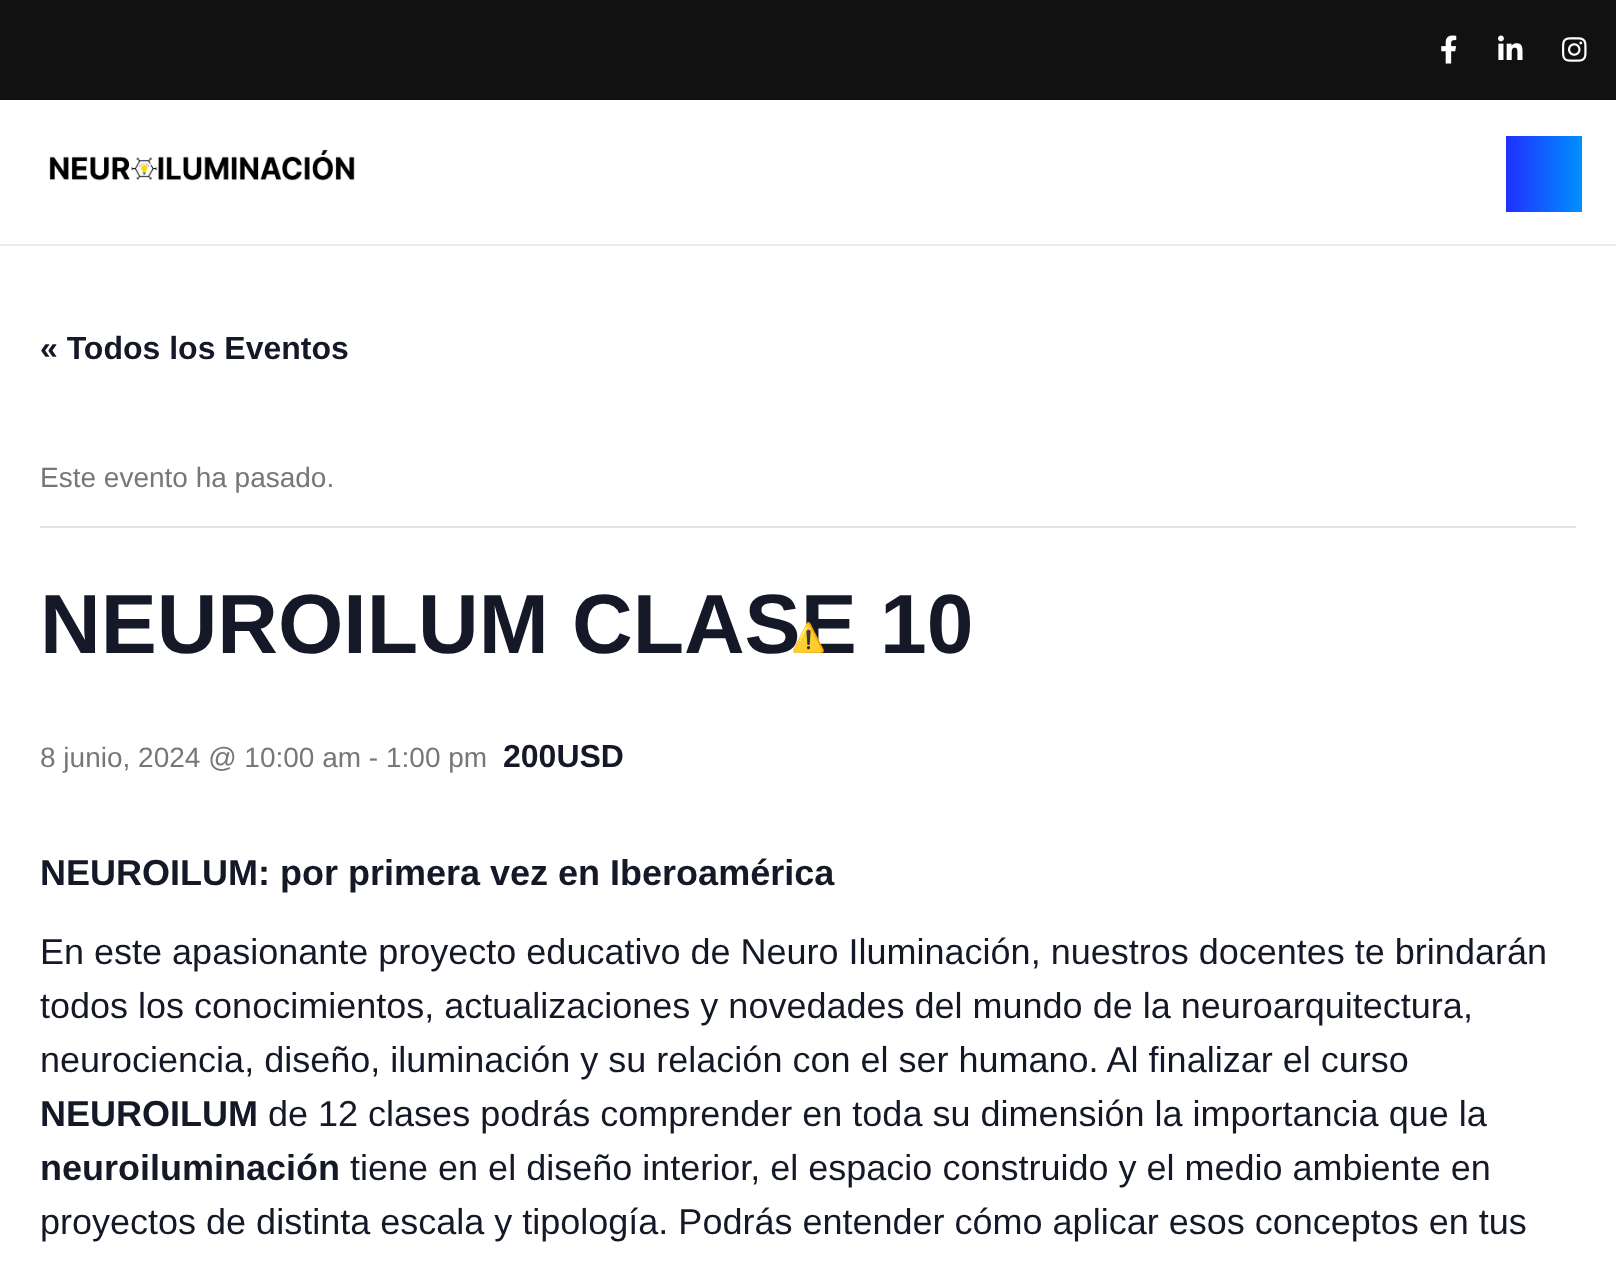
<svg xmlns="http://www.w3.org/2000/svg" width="1616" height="1273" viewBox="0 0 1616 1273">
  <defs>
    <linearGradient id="g1" gradientUnits="userSpaceOnUse" x1="1506" y1="174" x2="1582" y2="174"><stop offset="0" stop-color="#2130ff"/><stop offset="1" stop-color="#0090ff"/></linearGradient>
  </defs>
  <rect width="100%" height="100%" fill="#fff"/>
  <path d="M0 244h1616v2H0z" fill="#ebebeb"/>
  <path d="M0 0h1616v100H0z" fill="#111"/>
  <image x="1441" y="35" width="16" height="29" href="img/1.png"/>
  <image x="1498" y="35" width="25" height="25" href="img/2.png"/>
  <image x="1562" y="37" width="25" height="25" href="img/3.png"/>
  <image x="49" y="149" width="306" height="32" href="img/4.png"/>
  <path d="M1506 136h76v76H1506z" fill="url(#g1)"/>
  <path d="M40 526h1536v2H40z" fill="#e4e4e4"/>
  <text x="40" y="359" font-family="Liberation Sans" font-size="32" font-weight="bold" fill="#141827">« Todos los Eventos</text>
  <text x="40" y="487" font-family="Liberation Sans" font-size="28" fill="#777">Este evento ha pasado.</text>
  <text x="40" y="653" font-family="Liberation Sans" font-size="84" font-weight="bold" fill="#141827">NEUROILUM CLASE 10</text>
  <text x="40" y="767" font-family="Liberation Sans" font-size="28" fill="#777">8 junio, 2024 @ 10:00 am - 1:00 pm</text>
  <text x="503" y="767" font-family="Liberation Sans" font-size="32" font-weight="bold" fill="#141827">200USD</text>
  <text x="40" y="885" font-family="Liberation Sans" font-size="36" font-weight="bold" fill="#141827">NEUROILUM: por primera vez en Iberoamérica</text>
  <g font-family="Liberation Sans" font-size="36" fill="#141827">
    <text x="40" y="964">En este apasionante proyecto educativo de Neuro Iluminación, nuestros docentes te brindarán</text>
    <text x="40" y="1018">todos los conocimientos, actualizaciones y novedades del mundo de la neuroarquitectura,</text>
    <text x="40" y="1072">neurociencia, diseño, iluminación y su relación con el ser humano. Al finalizar el curso</text>
  </g>
  <text x="40" y="1126" font-family="Liberation Sans" font-size="36" font-weight="bold" fill="#141827">NEUROILUM</text>
  <text x="268" y="1126" font-family="Liberation Sans" font-size="36" fill="#141827">de 12 clases podrás comprender en toda su dimensión la importancia que la</text>
  <text x="40" y="1180" font-family="Liberation Sans" font-size="36" font-weight="bold" fill="#141827">neuroiluminación</text>
  <g font-family="Liberation Sans" font-size="36" fill="#141827">
    <text x="350" y="1180">tiene en el diseño interior, el espacio construido y el medio ambiente en</text>
    <text x="40" y="1234">proyectos de distinta escala y tipología. Podrás entender cómo aplicar esos conceptos en tus</text>
  </g>
  <text x="791" y="647" font-family="Noto Color Emoji" font-size="28" fill="#78797e">⚠️</text>
</svg>
